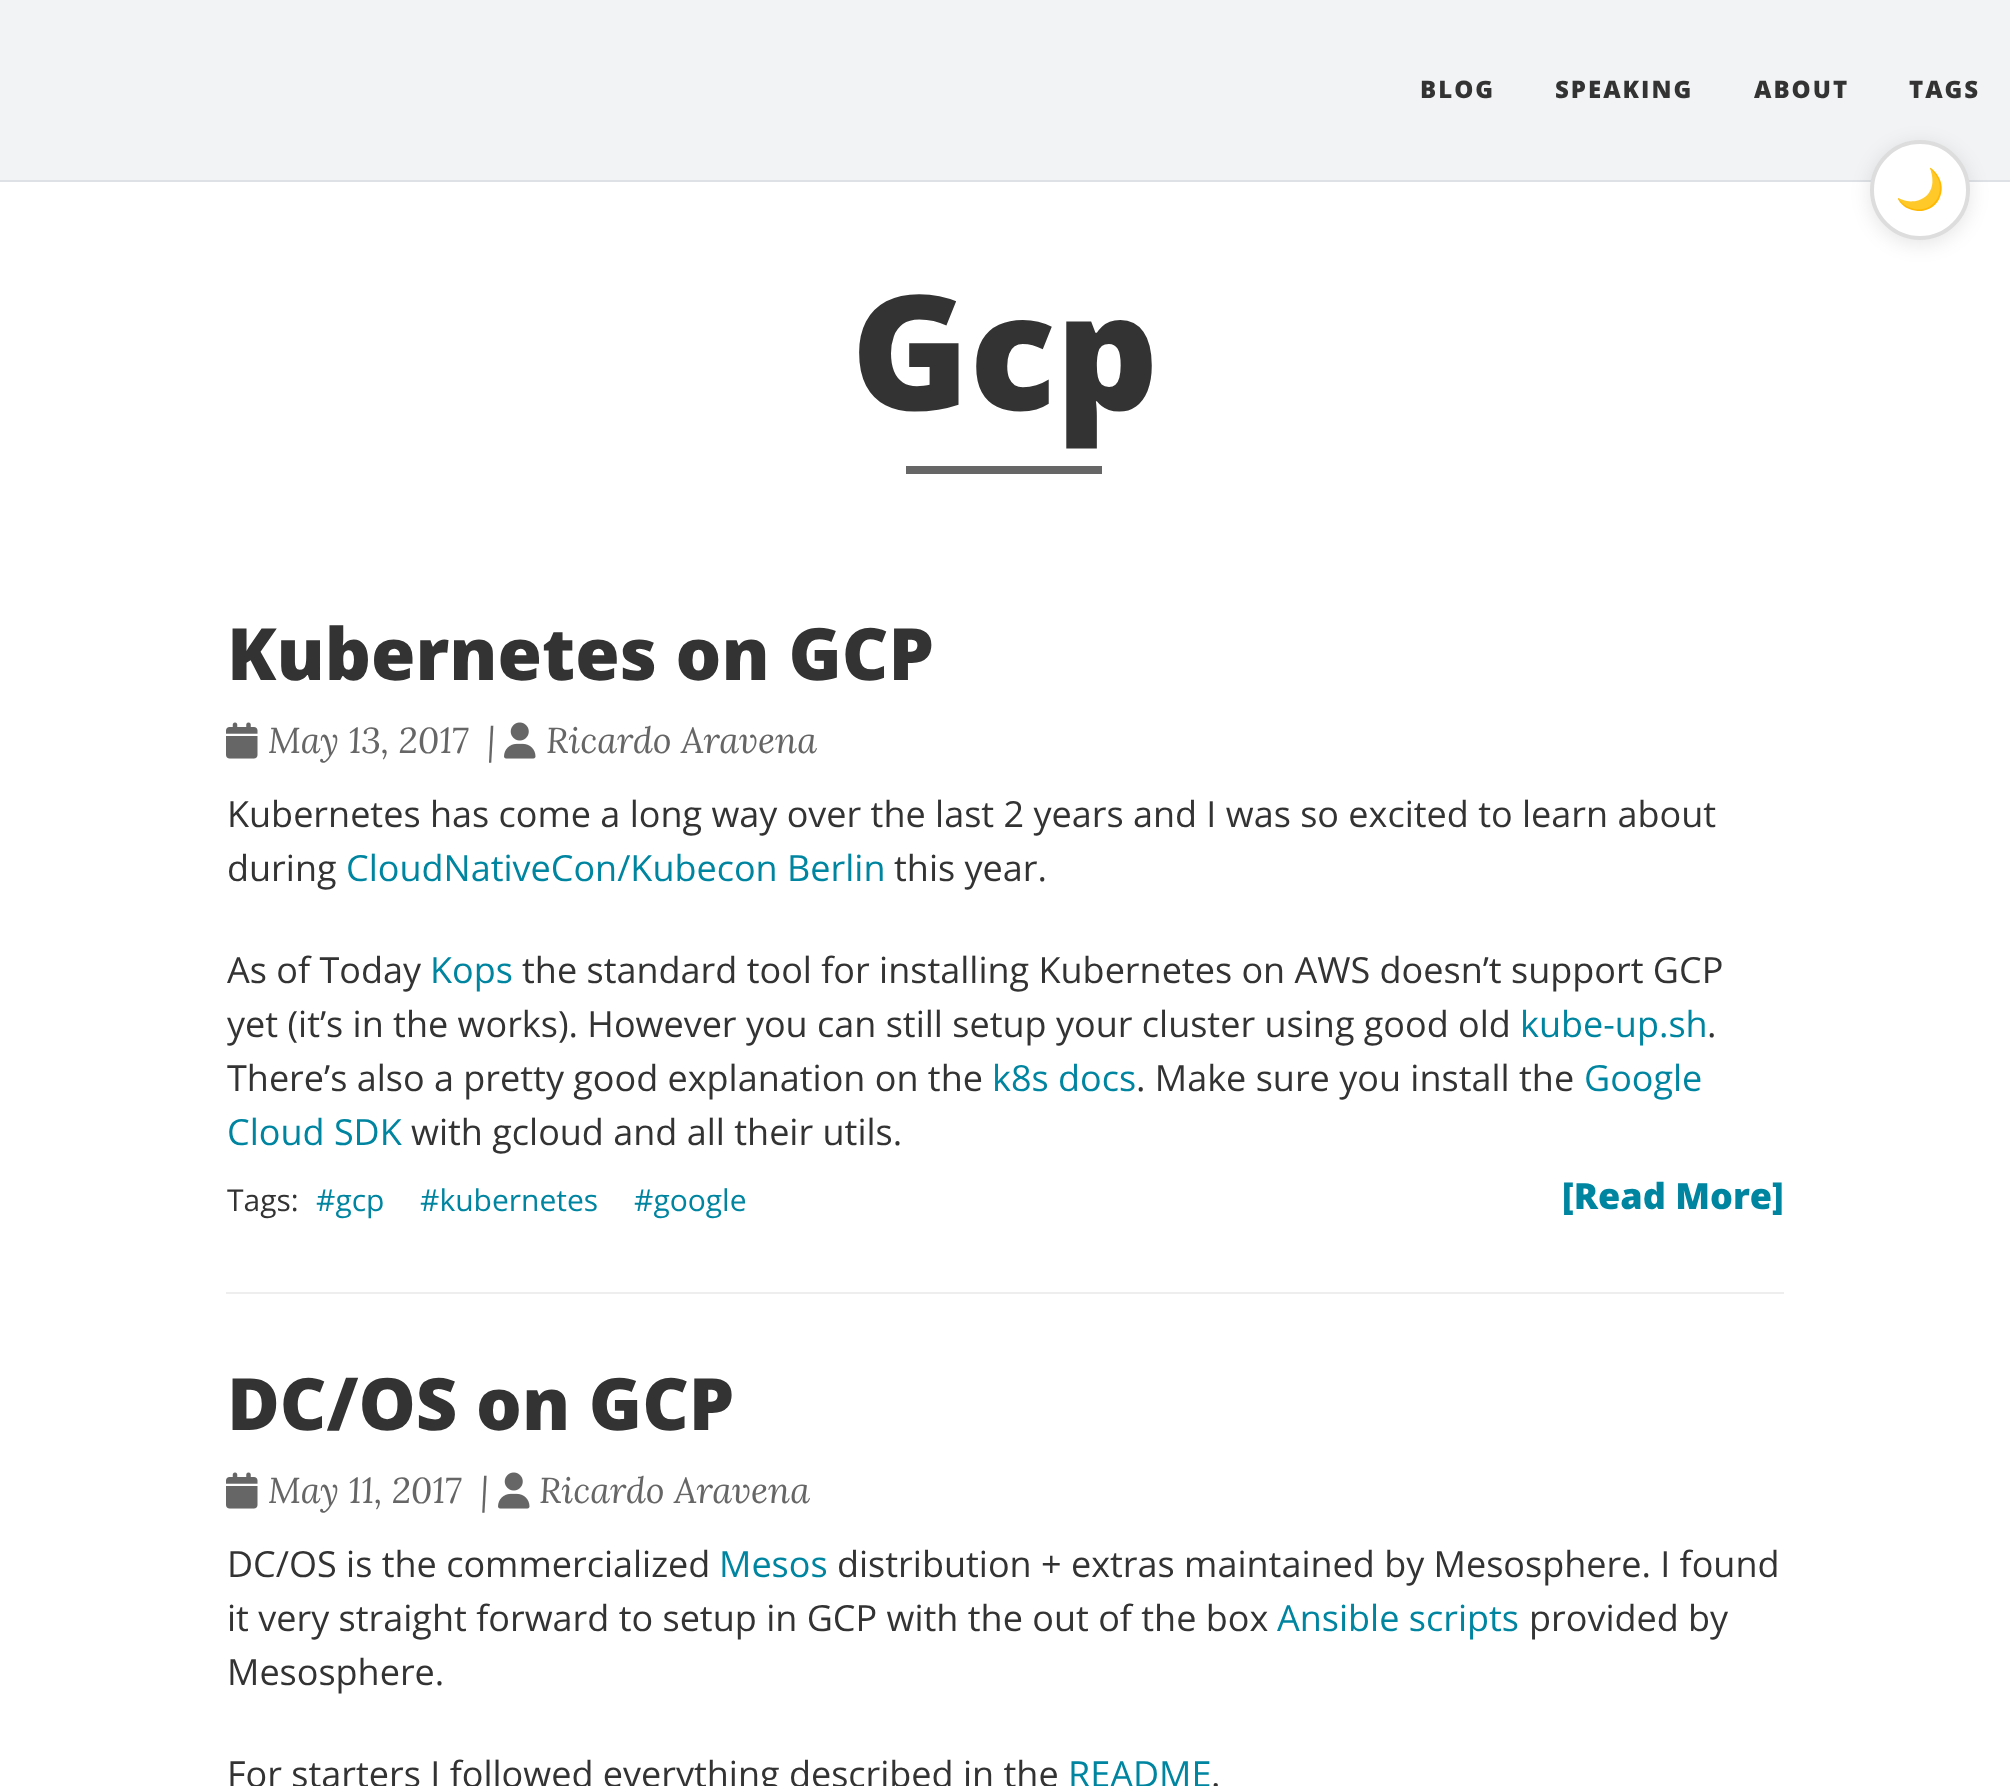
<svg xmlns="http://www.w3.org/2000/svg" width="2010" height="1786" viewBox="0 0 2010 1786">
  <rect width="100%" height="100%" fill="#fff"/>
  <path d="M0 0h2010v180H0z" fill="#f1f3f4"/>
  <path d="M0 180h2010v2H0z" fill="#dee2e6"/>
  <rect x="1870" y="144" width="100" height="100" rx="50" fill="#0000001a" filter="blur(10px)"/>
  <circle cx="1920" cy="190" r="48" fill="#fff" stroke="#ddd" stroke-width="4"/>
  <path d="M906 466h196v8H906z" fill="#666"/>
  <path d="M226 1292h1558v2H226z" fill="#eee"/>
  <image x="226" y="722" width="32" height="37" href="img/1.png"/>
  <image x="504" y="722" width="32" height="37" href="img/2.png"/>
  <image x="226" y="1472" width="32" height="37" href="img/1.png"/>
  <image x="498" y="1472" width="32" height="37" href="img/2.png"/>
  <g font-family="Open Sans" font-size="24" font-weight="800" letter-spacing="2" fill="#333">
    <text x="1420" y="98">BLOG</text>
    <text x="1555" y="98">SPEAKING</text>
    <text x="1754" y="98">ABOUT</text>
    <text x="1909" y="98">TAGS</text>
  </g>
  <text x="1895" y="203" font-family="Noto Color Emoji" font-size="40" fill="#333">🌙</text>
  <text x="851" y="410" font-family="Open Sans" font-size="160" font-weight="800" fill="#333">Gcp</text>
  <text x="227" y="680" font-family="Open Sans" font-size="72" font-weight="800" fill="#333">Kubernetes on GCP</text>
  <g font-family="Lora" font-size="36" font-style="italic" fill="#666">
    <text x="268" y="753" xml:space="preserve">May 13, 2017  |</text>
    <text x="546" y="753">Ricardo Aravena</text>
  </g>
  <g font-family="Open Sans" font-size="36" fill="#333">
    <text x="227" y="827">Kubernetes has come a long way over the last 2 years and I was so excited to learn about</text>
    <text x="227" y="881">during</text>
  </g>
  <text x="346" y="881" font-family="Open Sans" font-size="36" fill="#0085a1">CloudNativeCon/Kubecon Berlin</text>
  <g font-family="Open Sans" font-size="36" fill="#333">
    <text x="894" y="881">this year.</text>
    <text x="227" y="983">As of Today</text>
  </g>
  <text x="430" y="983" font-family="Open Sans" font-size="36" fill="#0085a1">Kops</text>
  <g font-family="Open Sans" font-size="36" fill="#333">
    <text x="522" y="983">the standard tool for installing Kubernetes on AWS doesn’t support GCP</text>
    <text x="227" y="1037">yet (it’s in the works). However you can still setup your cluster using good old</text>
  </g>
  <text x="1520" y="1037" font-family="Open Sans" font-size="36" fill="#0085a1">kube-up.sh</text>
  <g font-family="Open Sans" font-size="36" fill="#333">
    <text x="1707" y="1037">.</text>
    <text x="227" y="1091">There’s also a pretty good explanation on the</text>
  </g>
  <text x="992" y="1091" font-family="Open Sans" font-size="36" fill="#0085a1">k8s docs</text>
  <text x="1136" y="1091" font-family="Open Sans" font-size="36" fill="#333">. Make sure you install the</text>
  <g font-family="Open Sans" font-size="36" fill="#0085a1">
    <text x="1584" y="1091">Google</text>
    <text x="227" y="1145">Cloud SDK</text>
  </g>
  <text x="411" y="1145" font-family="Open Sans" font-size="36" fill="#333">with gcloud and all their utils.</text>
  <text x="1562" y="1209" font-family="Open Sans" font-size="36" font-weight="800" fill="#0085a1">[Read More]</text>
  <text x="227" y="1211" font-family="Open Sans" font-size="30" fill="#333">Tags:</text>
  <g font-family="Open Sans" font-size="30" fill="#0085a1">
    <text x="316" y="1211">#gcp</text>
    <text x="420" y="1211">#kubernetes</text>
    <text x="634" y="1211">#google</text>
  </g>
  <text x="227" y="1430" font-family="Open Sans" font-size="72" font-weight="800" fill="#333">DC/OS on GCP</text>
  <g font-family="Lora" font-size="36" font-style="italic" fill="#666">
    <text x="268" y="1503" xml:space="preserve">May 11, 2017  |</text>
    <text x="539" y="1503">Ricardo Aravena</text>
  </g>
  <text x="227" y="1577" font-family="Open Sans" font-size="36" fill="#333">DC/OS is the commercialized</text>
  <text x="719" y="1577" font-family="Open Sans" font-size="36" fill="#0085a1">Mesos</text>
  <g font-family="Open Sans" font-size="36" fill="#333">
    <text x="837" y="1577">distribution + extras maintained by Mesosphere. I found</text>
    <text x="227" y="1631">it very straight forward to setup in GCP with the out of the box</text>
  </g>
  <text x="1277" y="1631" font-family="Open Sans" font-size="36" fill="#0085a1">Ansible scripts</text>
  <g font-family="Open Sans" font-size="36" fill="#333">
    <text x="1529" y="1631">provided by</text>
    <text x="227" y="1685">Mesosphere.</text>
    <text x="227" y="1787">For starters I followed everything described in the</text>
  </g>
  <text x="1068" y="1787" font-family="Open Sans" font-size="36" fill="#0085a1">README</text>
  <text x="1211" y="1787" font-family="Open Sans" font-size="36" fill="#333">.</text>
</svg>
